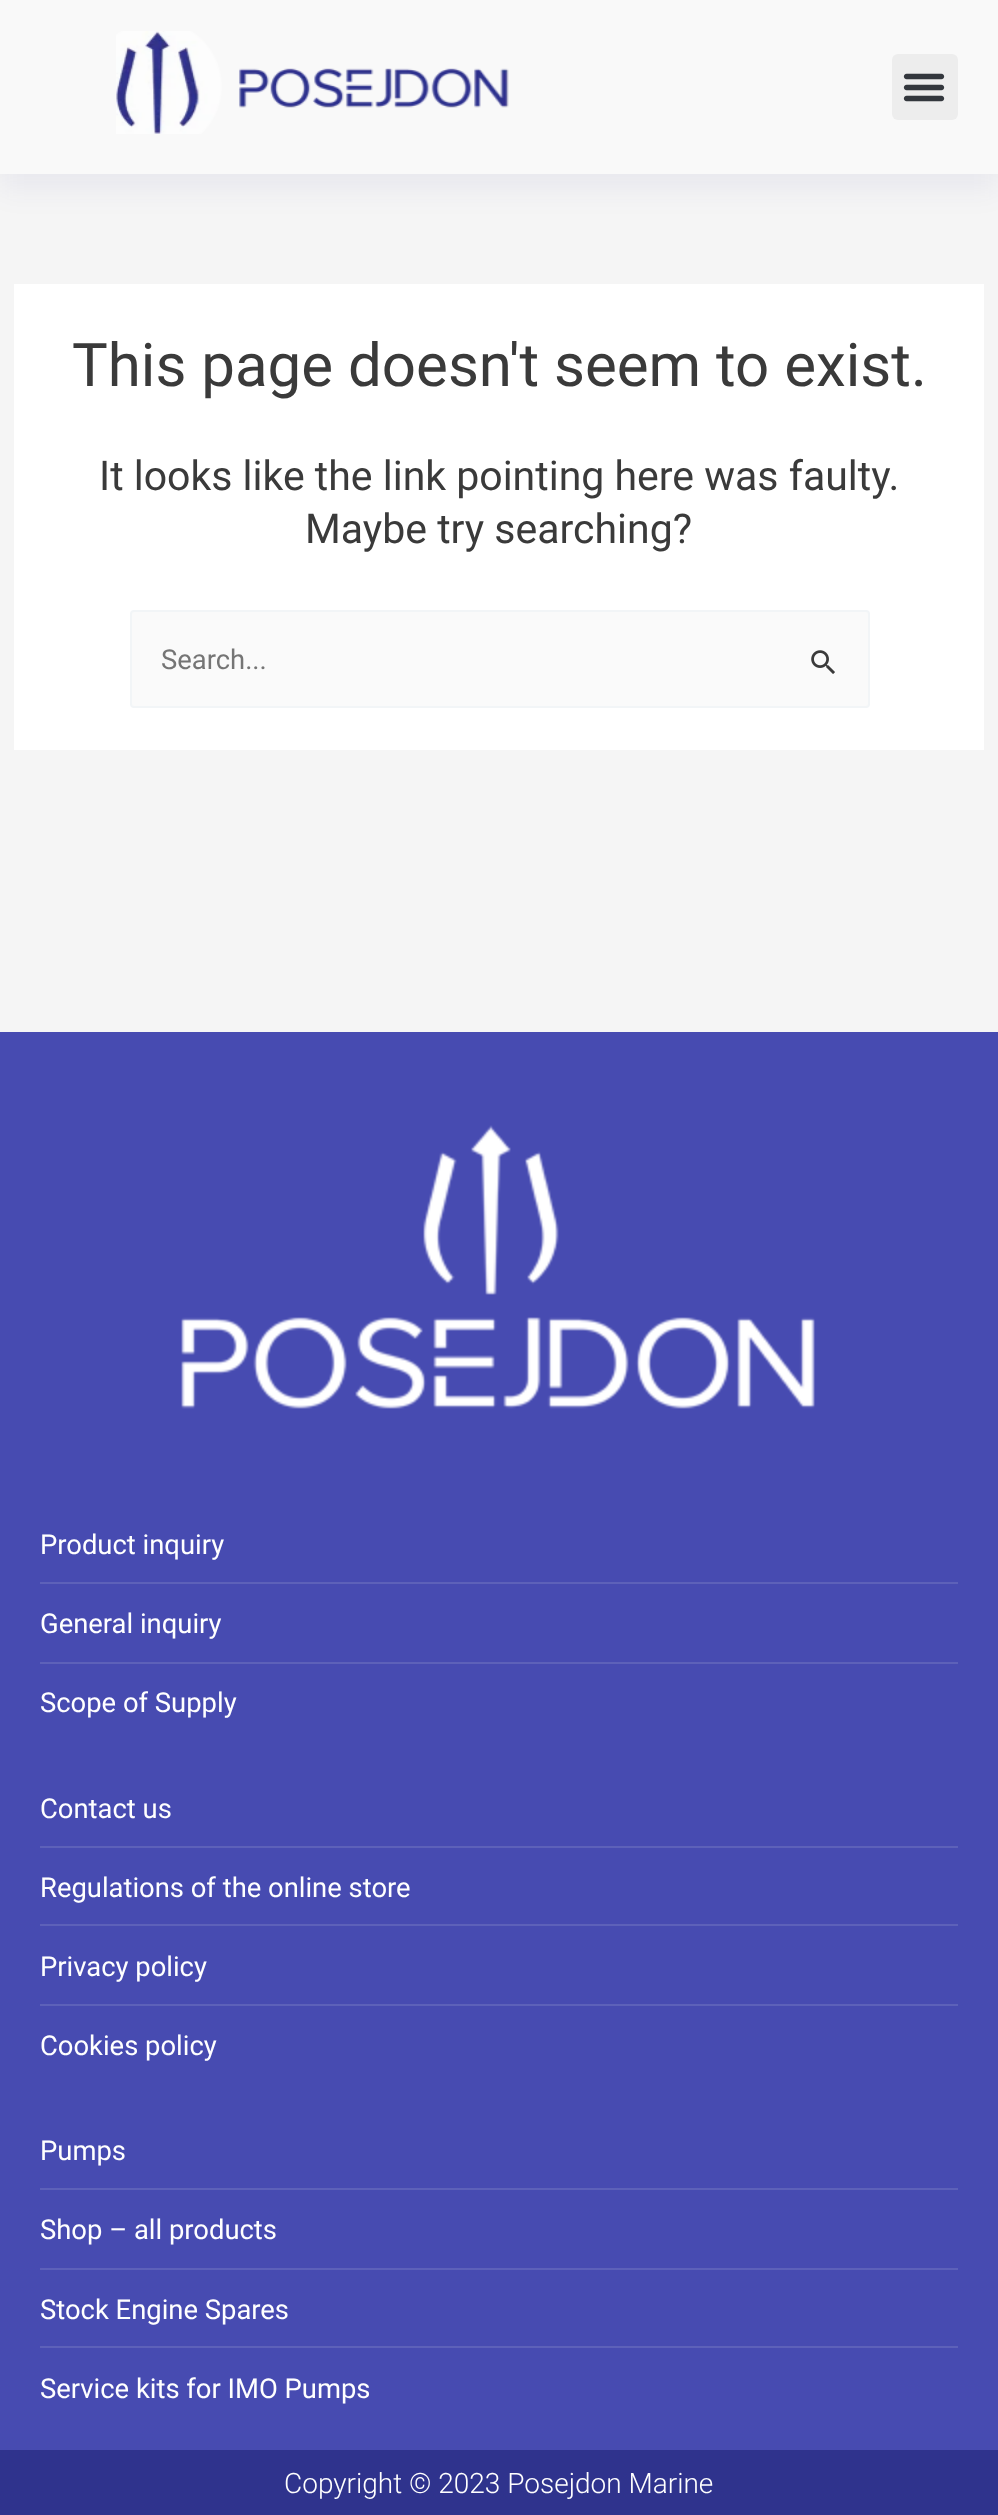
<svg xmlns="http://www.w3.org/2000/svg" width="998" height="2515" viewBox="0 0 998 2515">
  <rect width="100%" height="100%" fill="#f5f5f5"/>
  <path d="M0 16h998v174H0z" fill="#1f26870f" filter="blur(14px)"/>
  <path d="M0 0h998v174H0z" fill="#f9f9f9"/>
  <image x="116" y="31" width="393" height="103" href="img/1.png"/>
  <rect x="892" y="54" width="66" height="66" rx="6" fill="#ededed"/>
  <image x="903" y="73" width="42" height="29" href="img/2.png"/>
  <path d="M14 284h970v466H14z" fill="#fff"/>
  <rect x="131" y="611" width="738" height="96" rx="3" fill="#fafafa" stroke="#f2f5f7" stroke-width="2"/>
  <image x="811" y="650" width="24" height="24" href="img/3.png"/>
  <path d="M0 1032h998v1418H0z" fill="#474bb1"/>
  <image x="181" y="1125" width="634" height="284" href="img/4.png"/>
  <path d="M40 1582h918v2H40z" fill="#5d61b9"/>
  <path d="M40 1662h918v2H40z" fill="#5d61b9"/>
  <path d="M40 1846h918v2H40z" fill="#5d61b9"/>
  <path d="M40 1924h918v2H40z" fill="#5d61b9"/>
  <path d="M40 2004h918v2H40z" fill="#5d61b9"/>
  <path d="M40 2188h918v2H40z" fill="#5d61b9"/>
  <path d="M40 2268h918v2H40z" fill="#5d61b9"/>
  <path d="M40 2346h918v2H40z" fill="#5d61b9"/>
  <path d="M0 2450h998v65H0z" fill="#2f338d"/>
  <text x="72" y="386" font-family="Roboto" font-size="60" fill="#3a3a3a">This page doesn't seem to exist.</text>
  <g font-family="Roboto" font-size="41" fill="#3a3a3a">
    <text x="99" y="490">It looks like the link pointing here was faulty.</text>
    <text x="305" y="543">Maybe try searching?</text>
  </g>
  <text x="161" y="669" font-family="Roboto" font-size="27.4" fill="#757575">Search...</text>
  <g font-family="Roboto" font-size="27.4" fill="#fff">
    <text x="40" y="1554">Product inquiry</text>
    <text x="40" y="1633">General inquiry</text>
    <text x="40" y="1712">Scope of Supply</text>
    <text x="40" y="1818">Contact us</text>
    <text x="40" y="1897">Regulations of the online store</text>
    <text x="40" y="1976">Privacy policy</text>
    <text x="40" y="2055">Cookies policy</text>
    <text x="40" y="2160">Pumps</text>
    <text x="40" y="2239">Shop – all products</text>
    <text x="40" y="2319">Stock Engine Spares</text>
    <text x="40" y="2398">Service kits for IMO Pumps</text>
  </g>
  <text x="284" y="2493" font-family="Roboto" font-size="28" font-weight="300" fill="#fff">Copyright © 2023 Posejdon Marine</text>
</svg>
